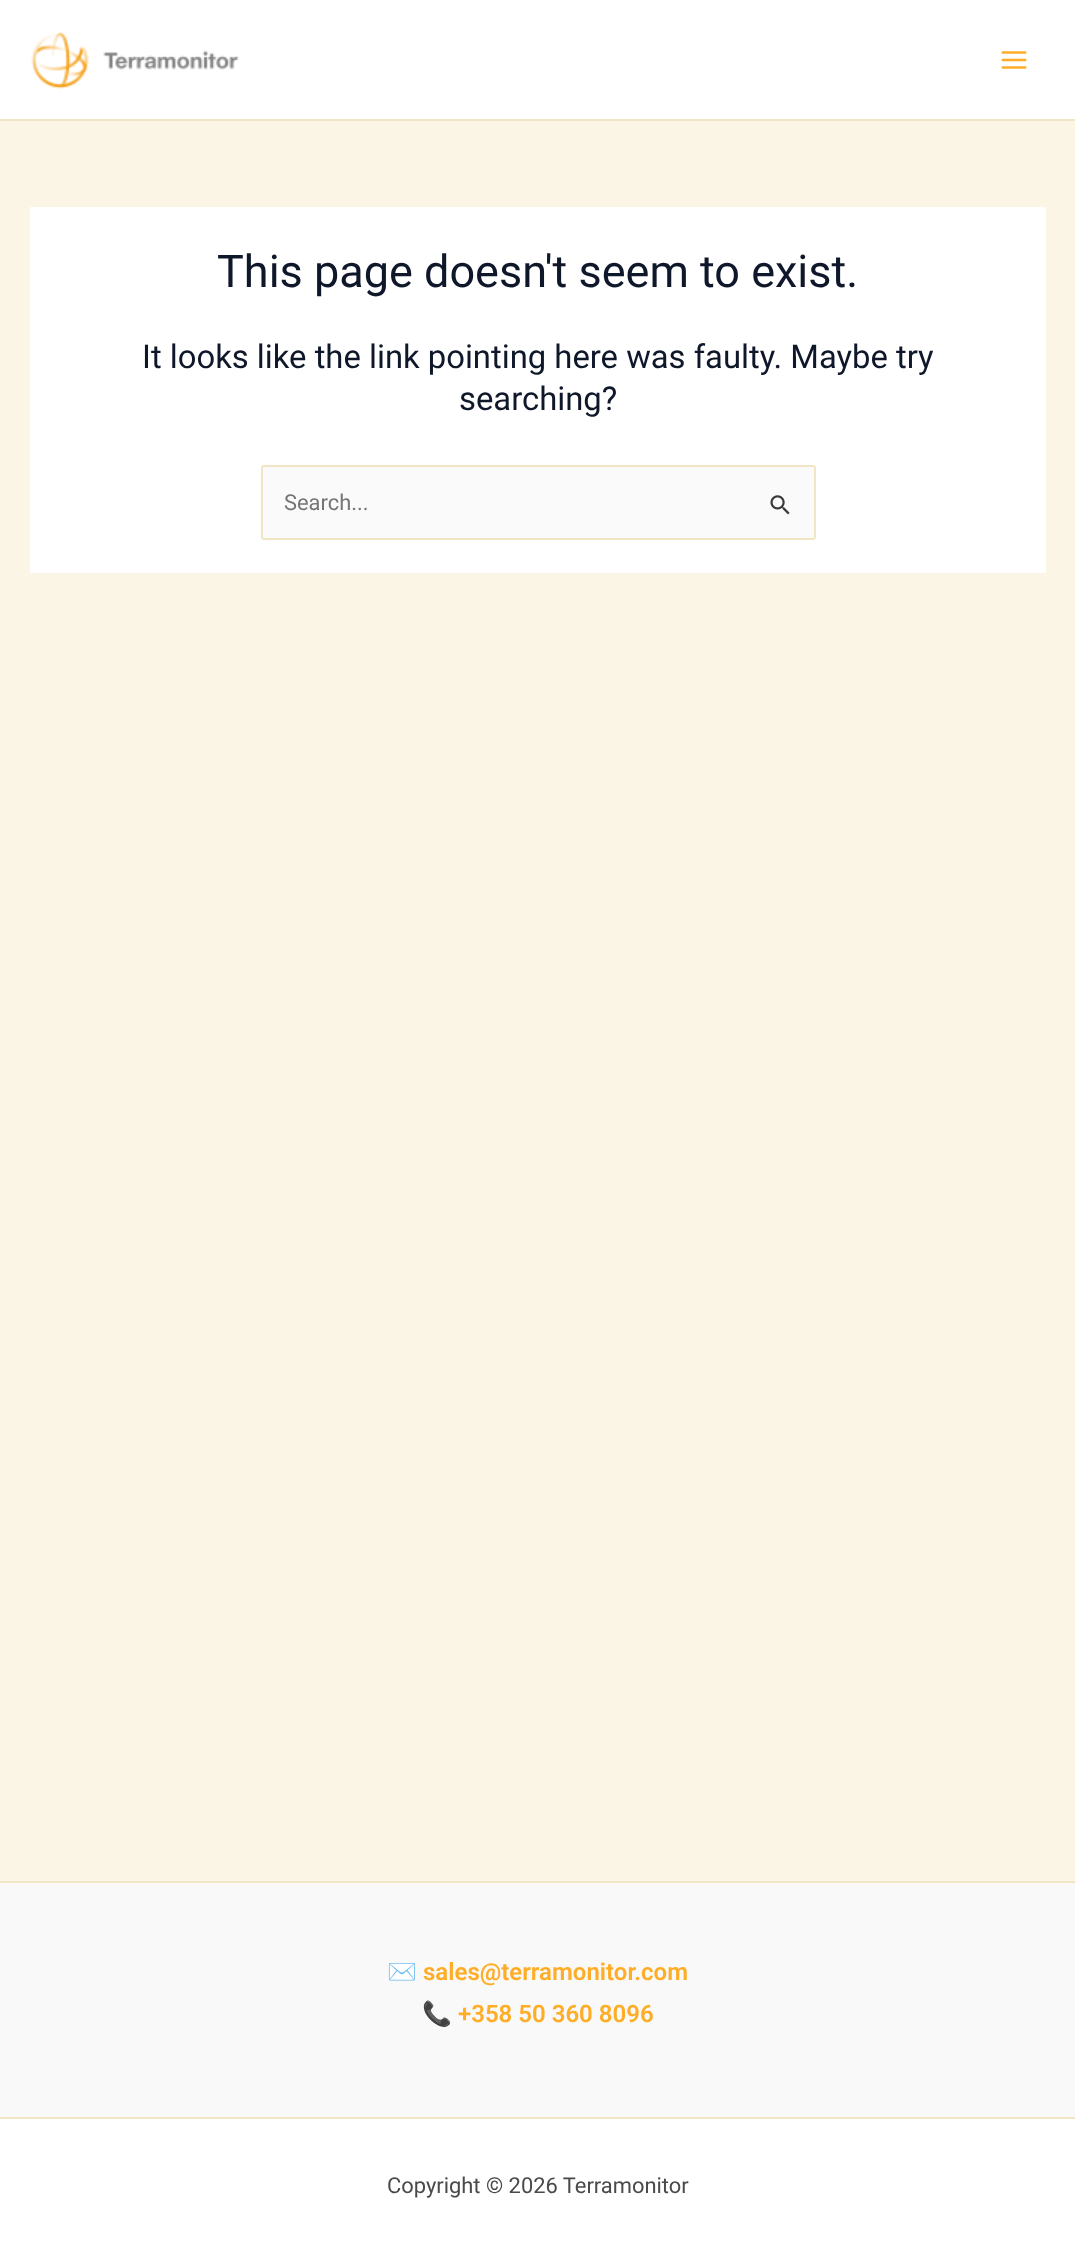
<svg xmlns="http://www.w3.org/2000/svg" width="1075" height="2268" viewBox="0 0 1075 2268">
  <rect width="100%" height="100%" fill="#faf5e5"/>
  <path d="M0 0h1075v119H0z" fill="#fff"/>
  <path d="M0 119h1075v2H0z" fill="#f0e6c5"/>
  <image x="31" y="31" width="208" height="58" href="img/1.png"/>
  <image x="1001" y="51" width="26" height="18" href="img/2.png"/>
  <path d="M30 207h1016v366H30z" fill="#fff"/>
  <rect x="262" y="466" width="553" height="73" rx="2" fill="#fafafa" stroke="#f0e6c5" stroke-width="2"/>
  <image x="770" y="495" width="20" height="20" href="img/3.png"/>
  <path d="M0 1883h1075v234H0z" fill="#f9f9f9"/>
  <path d="M0 1881h1075v2H0z" fill="#f0e6c5"/>
  <path d="M0 2119h1075v149H0z" fill="#fff"/>
  <path d="M0 2117h1075v2H0z" fill="#f0e6c5"/>
  <text x="217" y="287" font-family="Roboto" font-size="45" fill="#0f172a">This page doesn't seem to exist.</text>
  <g font-family="Roboto" font-size="32.8" fill="#0f172a">
    <text x="142" y="368">It looks like the link pointing here was faulty. Maybe try</text>
    <text x="459" y="410">searching?</text>
  </g>
  <text x="284" y="510" font-family="Roboto" font-size="21.9" fill="#757575">Search...</text>
  <text x="387" y="1980" font-family="Noto Color Emoji" font-size="24" font-weight="bold" fill="#0f172a">✉️</text>
  <text x="423" y="1980" font-family="Roboto" font-size="24" font-weight="600" fill="#ffac26">sales@terramonitor.com</text>
  <text x="422" y="2022" font-family="Noto Color Emoji" font-size="24" font-weight="bold" fill="#0f172a">📞</text>
  <text x="458" y="2022" font-family="Roboto" font-size="24" font-weight="600" fill="#ffac26">+358 50 360 8096</text>
  <text x="387" y="2193" font-family="Roboto" font-size="21.9" fill="#4a4a4a">Copyright © 2026 Terramonitor</text>
</svg>
